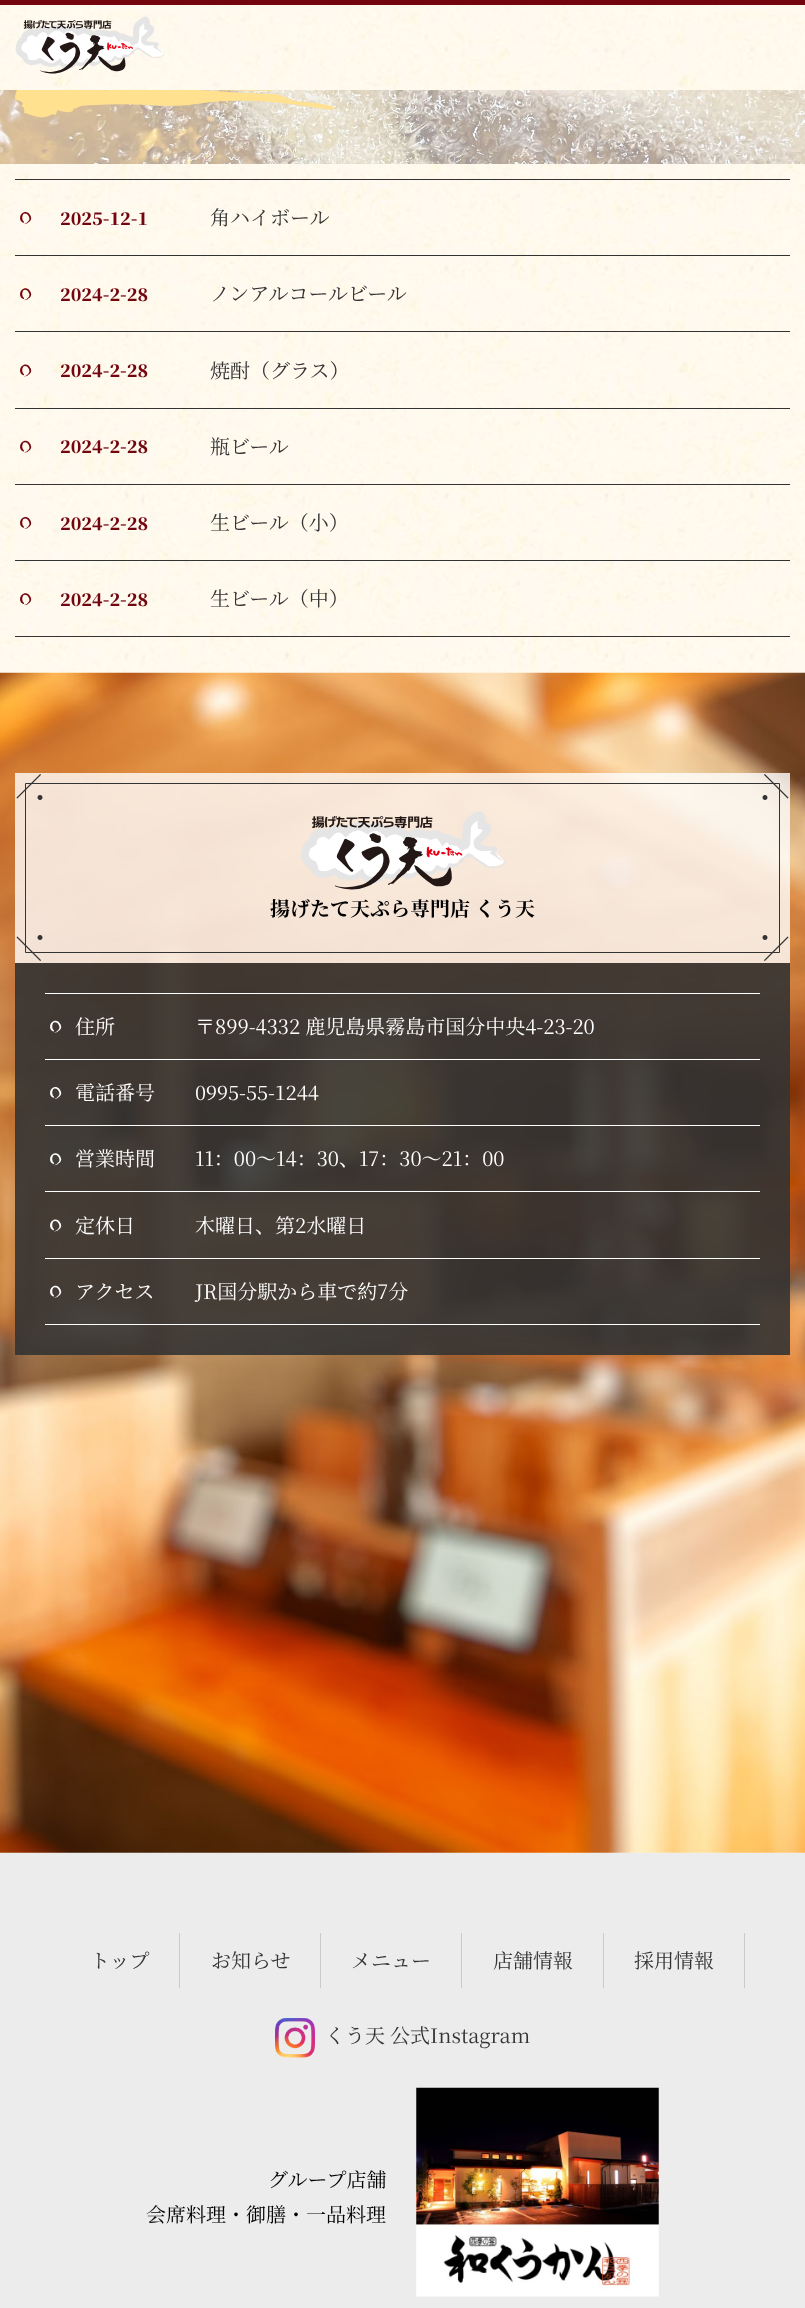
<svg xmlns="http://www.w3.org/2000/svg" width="805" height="2308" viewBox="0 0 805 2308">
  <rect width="100%" height="100%" fill="#fff"/>
  <image x="0" y="164" width="805" height="1689" href="img/1.png"/>
  <image x="0" y="5" width="805" height="85" href="img/2.png"/>
  <path d="M0 0h805v5H0z" fill="#72050d"/>
  <image x="15" y="16" width="150" height="58" href="img/3.png"/>
  <image x="0" y="90" width="805" height="74" href="img/4.png"/>
  <image x="15" y="90" width="320" height="28" href="img/5.png"/>
  <path d="M15 179h775v1H15z" fill="#333"/>
  <image x="20" y="212" width="12" height="12" href="img/6.png"/>
  <path d="M15 255h775v1H15z" fill="#333"/>
  <image x="20" y="288" width="12" height="13" href="img/7.png"/>
  <path d="M15 331h775v1H15z" fill="#333"/>
  <image x="20" y="364" width="12" height="13" href="img/8.png"/>
  <path d="M15 408h775v1H15z" fill="#333"/>
  <image x="20" y="440" width="12" height="13" href="img/9.png"/>
  <path d="M15 484h775v1H15z" fill="#333"/>
  <image x="20" y="517" width="12" height="12" href="img/10.png"/>
  <path d="M15 560h775v1H15z" fill="#333"/>
  <image x="20" y="593" width="12" height="13" href="img/11.png"/>
  <path d="M15 636h775v1H15z" fill="#333"/>
  <image x="0" y="672" width="805" height="1181" href="img/12.png"/>
  <path d="M15 773h775v190H15z" fill="#ffffffcc"/>
  <image x="762" y="935" width="27" height="26" href="img/13.png"/>
  <image x="16" y="935" width="27" height="26" href="img/14.png"/>
  <image x="762" y="774" width="27" height="26" href="img/15.png"/>
  <image x="16" y="774" width="27" height="26" href="img/16.png"/>
  <path d="M25.5 783.5h754v169H25.5z" fill="none" stroke="#333"/>
  <image x="300" y="811" width="206" height="79" href="img/17.png"/>
  <path d="M15 963h775v392H15z" fill="#333333e6"/>
  <image x="50" y="1020" width="12" height="13" href="img/18.png"/>
  <path d="M45 993h715v1H45z" fill="#fff"/>
  <image x="50" y="1087" width="12" height="12" href="img/19.png"/>
  <path d="M45 1059h715v1H45z" fill="#fff"/>
  <image x="50" y="1153" width="12" height="13" href="img/20.png"/>
  <path d="M45 1125h715v1H45z" fill="#fff"/>
  <image x="50" y="1219" width="12" height="13" href="img/21.png"/>
  <path d="M45 1191h715v1H45z" fill="#fff"/>
  <image x="50" y="1285" width="12" height="13" href="img/22.png"/>
  <path d="M45 1258h715v1H45z" fill="#fff"/>
  <path d="M45 1324h715v1H45z" fill="#fff"/>
  <path d="M0 1853h805v455H0z" fill="#ececec"/>
  <path d="M179 1933h1v55H179z" fill="#cacaca"/>
  <path d="M320 1933h1v55H320z" fill="#cacaca"/>
  <path d="M461 1933h1v55H461z" fill="#cacaca"/>
  <path d="M603 1933h1v55H603z" fill="#cacaca"/>
  <path d="M744 1933h1v55H744z" fill="#cacaca"/>
  <image x="275" y="2018" width="40" height="40" href="img/23.png"/>
  <image x="416" y="2087" width="243" height="210" href="img/24.png"/>
  <text x="60" y="225" font-family="Noto Serif SC" font-size="17.5" font-weight="900" fill="#72050d">2025-12-1</text>
  <text x="210" y="225" font-family="Noto Serif SC" font-size="20" fill="#333">角ハイボール</text>
  <text x="60" y="301" font-family="Noto Serif SC" font-size="17.5" font-weight="900" fill="#72050d">2024-2-28</text>
  <text x="210" y="301" font-family="Noto Serif SC" font-size="20" fill="#333">ノンアルコールビール</text>
  <text x="60" y="377" font-family="Noto Serif SC" font-size="17.5" font-weight="900" fill="#72050d">2024-2-28</text>
  <text x="210" y="378" font-family="Noto Serif SC" font-size="20" fill="#333">焼酎（グラス）</text>
  <text x="60" y="453" font-family="Noto Serif SC" font-size="17.5" font-weight="900" fill="#72050d">2024-2-28</text>
  <text x="210" y="454" font-family="Noto Serif SC" font-size="20" fill="#333">瓶ビール</text>
  <text x="60" y="530" font-family="Noto Serif SC" font-size="17.5" font-weight="900" fill="#72050d">2024-2-28</text>
  <text x="210" y="530" font-family="Noto Serif SC" font-size="20" fill="#333">生ビール（小）</text>
  <text x="60" y="606" font-family="Noto Serif SC" font-size="17.5" font-weight="900" fill="#72050d">2024-2-28</text>
  <text x="210" y="606" font-family="Noto Serif SC" font-size="20" fill="#333">生ビール（中）</text>
  <text x="270" y="916" font-family="Noto Serif SC" font-size="20" font-weight="bold" fill="#000">揚げたて天ぷら専門店 くう天</text>
  <g font-family="Noto Serif SC" font-size="20" fill="#fff">
    <text x="75" y="1034">住所</text>
    <text x="195" y="1034">〒899-4332 鹿児島県霧島市国分中央4-23-20</text>
    <text x="75" y="1100">電話番号</text>
    <text x="195" y="1100">0995-55-1244</text>
    <text x="75" y="1166">営業時間</text>
    <text x="195" y="1166">11：00～14：30、17：30～21：00</text>
    <text x="75" y="1233">定休日</text>
    <text x="195" y="1233">木曜日、第2水曜日</text>
    <text x="75" y="1299">アクセス</text>
    <text x="195" y="1299">JR国分駅から車で約7分</text>
  </g>
  <g font-family="Noto Serif SC" font-size="20" fill="#333">
    <text x="90" y="1968">トップ</text>
    <text x="211" y="1968">お知らせ</text>
    <text x="351" y="1968">メニュー</text>
    <text x="493" y="1968">店舗情報</text>
    <text x="634" y="1968">採用情報</text>
    <text x="325" y="2043">くう天 公式Instagram</text>
  </g>
  <g font-family="Noto Serif SC" font-size="20" fill="#000">
    <text x="268" y="2187">グループ店舗</text>
    <text x="146" y="2222">会席料理・御膳・一品料理</text>
  </g>
</svg>
